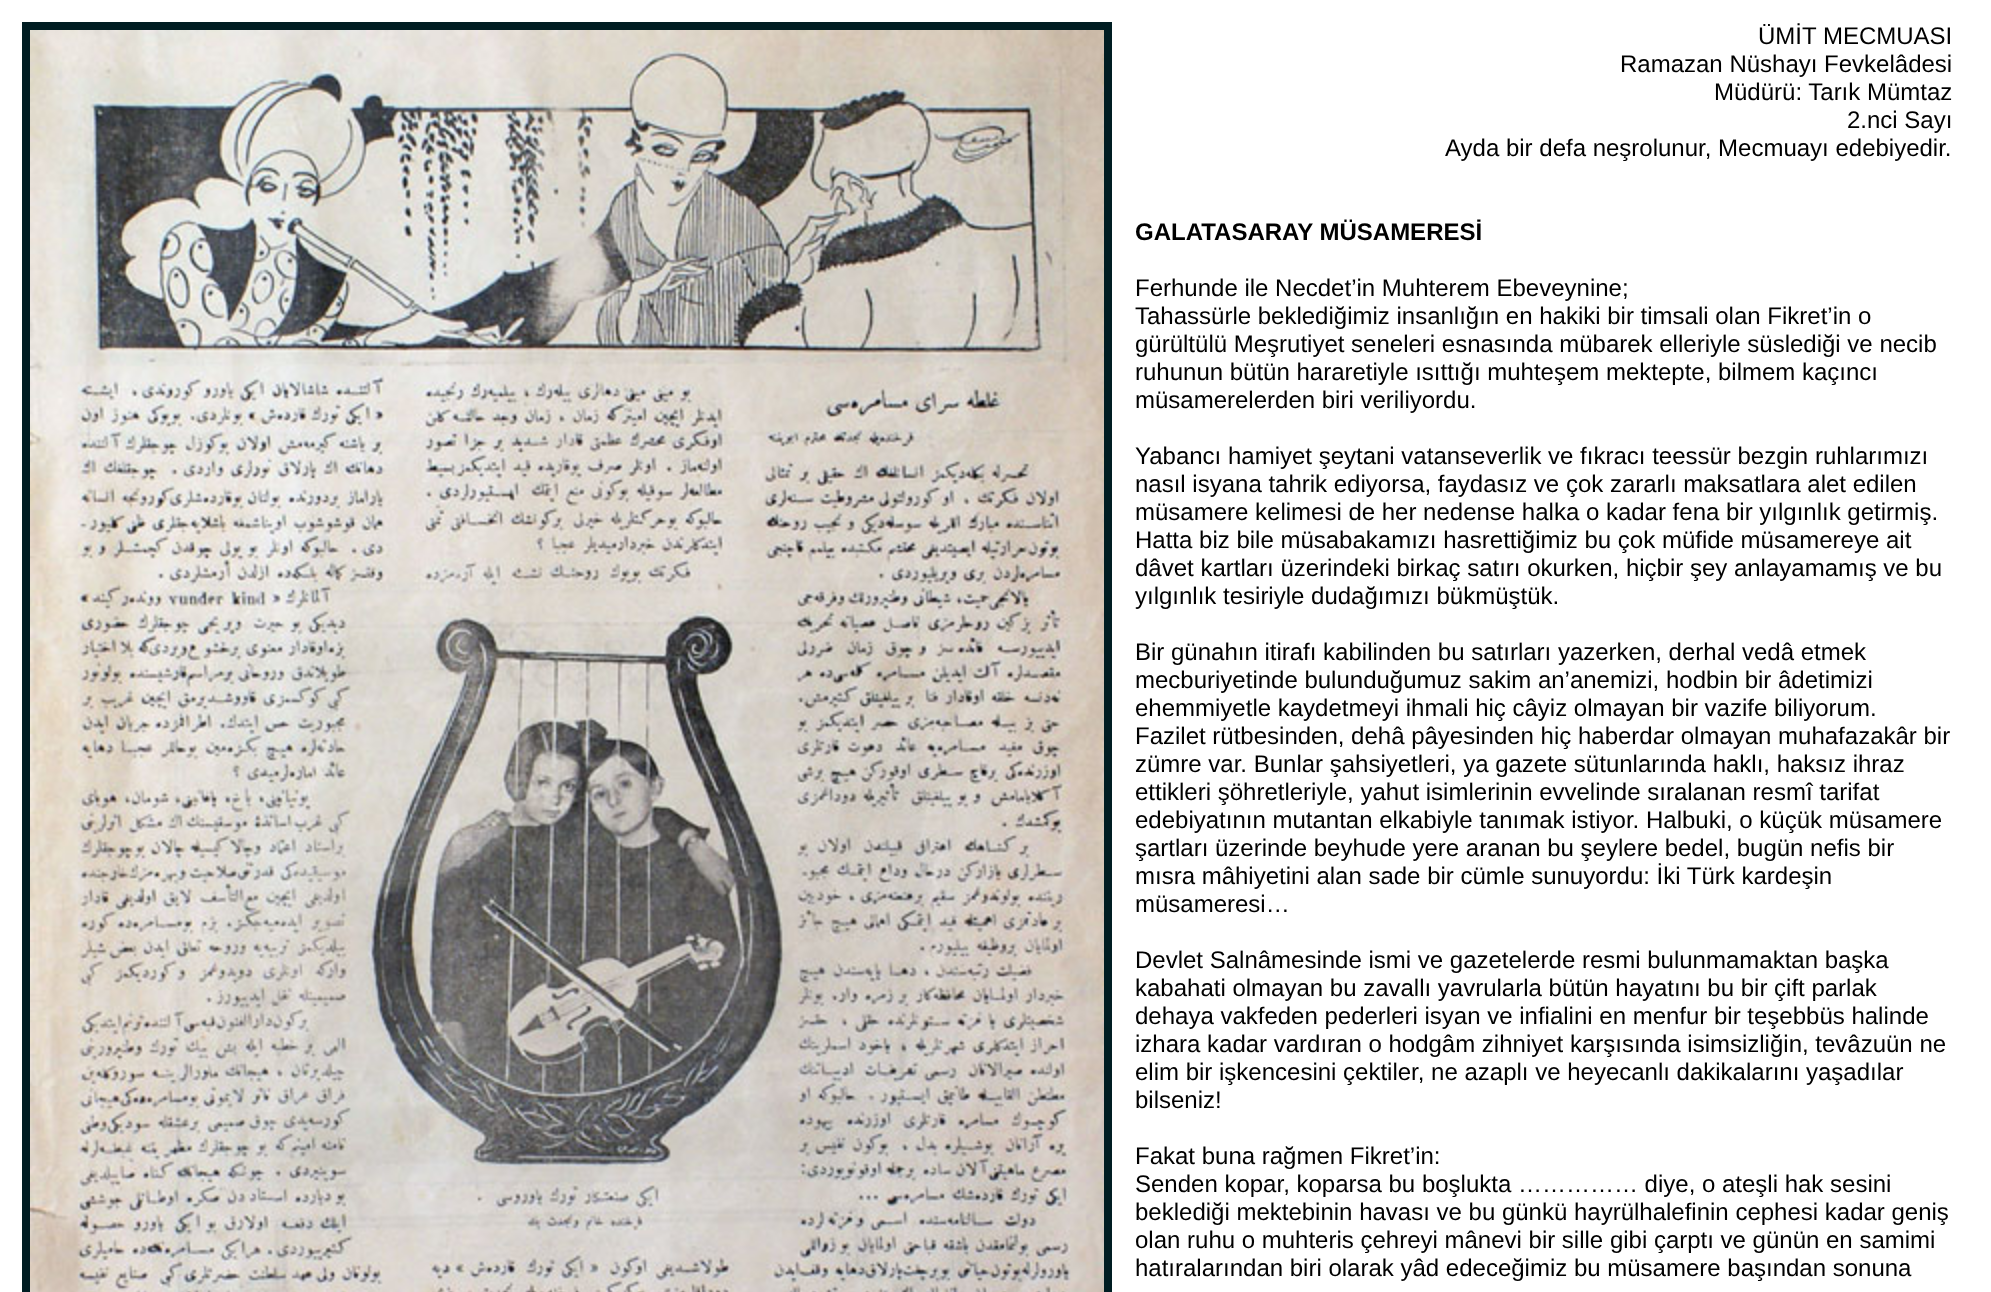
<svg xmlns="http://www.w3.org/2000/svg" width="1991" height="1292" viewBox="0 0 1991 1292">
  <rect width="100%" height="100%" fill="#fff"/>
  <path d="M22 22h1090v1270H22z" fill="#001d22"/>
  <image x="30" y="30" width="1074" height="1262" href="img/1.png"/>
  <g font-family="Liberation Sans" font-size="24" fill="#000">
    <text x="1758" y="44">ÜMİT MECMUASI</text>
    <text x="1620" y="72">Ramazan Nüshayı Fevkelâdesi</text>
    <text x="1714" y="100">Müdürü: Tarık Mümtaz</text>
    <text x="1847" y="128">2.nci Sayı</text>
    <text x="1445" y="156">Ayda bir defa neşrolunur, Mecmuayı edebiyedir.</text>
  </g>
  <text x="1135" y="240" font-family="Liberation Sans" font-size="24" font-weight="bold" fill="#000">GALATASARAY MÜSAMERESİ</text>
  <g font-family="Liberation Sans" font-size="24" fill="#000">
    <text x="1135" y="296">Ferhunde ile Necdet’in Muhterem Ebeveynine;</text>
    <text x="1135" y="324">Tahassürle beklediğimiz insanlığın en hakiki bir timsali olan Fikret’in o</text>
    <text x="1135" y="352">gürültülü Meşrutiyet seneleri esnasında mübarek elleriyle süslediği ve necib</text>
    <text x="1135" y="380">ruhunun bütün hararetiyle ısıttığı muhteşem mektepte, bilmem kaçıncı</text>
    <text x="1135" y="408">müsamerelerden biri veriliyordu.</text>
    <text x="1135" y="464">Yabancı hamiyet şeytani vatanseverlik ve fıkracı teessür bezgin ruhlarımızı</text>
    <text x="1135" y="492">nasıl isyana tahrik ediyorsa, faydasız ve çok zararlı maksatlara alet edilen</text>
    <text x="1135" y="520">müsamere kelimesi de her nedense halka o kadar fena bir yılgınlık getirmiş.</text>
    <text x="1135" y="548">Hatta biz bile müsabakamızı hasrettiğimiz bu çok müfide müsamereye ait</text>
    <text x="1135" y="576">dâvet kartları üzerindeki birkaç satırı okurken, hiçbir şey anlayamamış ve bu</text>
    <text x="1135" y="604">yılgınlık tesiriyle dudağımızı bükmüştük.</text>
    <text x="1135" y="660">Bir günahın itirafı kabilinden bu satırları yazerken, derhal vedâ etmek</text>
    <text x="1135" y="688">mecburiyetinde bulunduğumuz sakim an’anemizi, hodbin bir âdetimizi</text>
    <text x="1135" y="716">ehemmiyetle kaydetmeyi ihmali hiç câyiz olmayan bir vazife biliyorum.</text>
    <text x="1135" y="744">Fazilet rütbesinden, dehâ pâyesinden hiç haberdar olmayan muhafazakâr bir</text>
    <text x="1135" y="772">zümre var. Bunlar şahsiyetleri, ya gazete sütunlarında haklı, haksız ihraz</text>
    <text x="1135" y="800">ettikleri şöhretleriyle, yahut isimlerinin evvelinde sıralanan resmî tarifat</text>
    <text x="1135" y="828">edebiyatının mutantan elkabiyle tanımak istiyor. Halbuki, o küçük müsamere</text>
    <text x="1135" y="856">şartları üzerinde beyhude yere aranan bu şeylere bedel, bugün nefis bir</text>
    <text x="1135" y="884">mısra mâhiyetini alan sade bir cümle sunuyordu: İki Türk kardeşin</text>
    <text x="1135" y="912">müsameresi…</text>
    <text x="1135" y="968">Devlet Salnâmesinde ismi ve gazetelerde resmi bulunmamaktan başka</text>
    <text x="1135" y="996">kabahati olmayan bu zavallı yavrularla bütün hayatını bu bir çift parlak</text>
    <text x="1135" y="1024">dehaya vakfeden pederleri isyan ve infialini en menfur bir teşebbüs halinde</text>
    <text x="1135" y="1052">izhara kadar vardıran o hodgâm zihniyet karşısında isimsizliğin, tevâzuün ne</text>
    <text x="1135" y="1080">elim bir işkencesini çektiler, ne azaplı ve heyecanlı dakikalarını yaşadılar</text>
    <text x="1135" y="1108">bilseniz!</text>
    <text x="1135" y="1164">Fakat buna rağmen Fikret’in:</text>
    <text x="1135" y="1192">Senden kopar, koparsa bu boşlukta …………… diye, o ateşli hak sesini</text>
    <text x="1135" y="1220">beklediği mektebinin havası ve bu günkü hayrülhalefinin cephesi kadar geniş</text>
    <text x="1135" y="1248">olan ruhu o muhteris çehreyi mânevi bir sille gibi çarptı ve günün en samimi</text>
    <text x="1135" y="1276">hatıralarından biri olarak yâd edeceğimiz bu müsamere başından sonuna</text>
  </g>
</svg>
